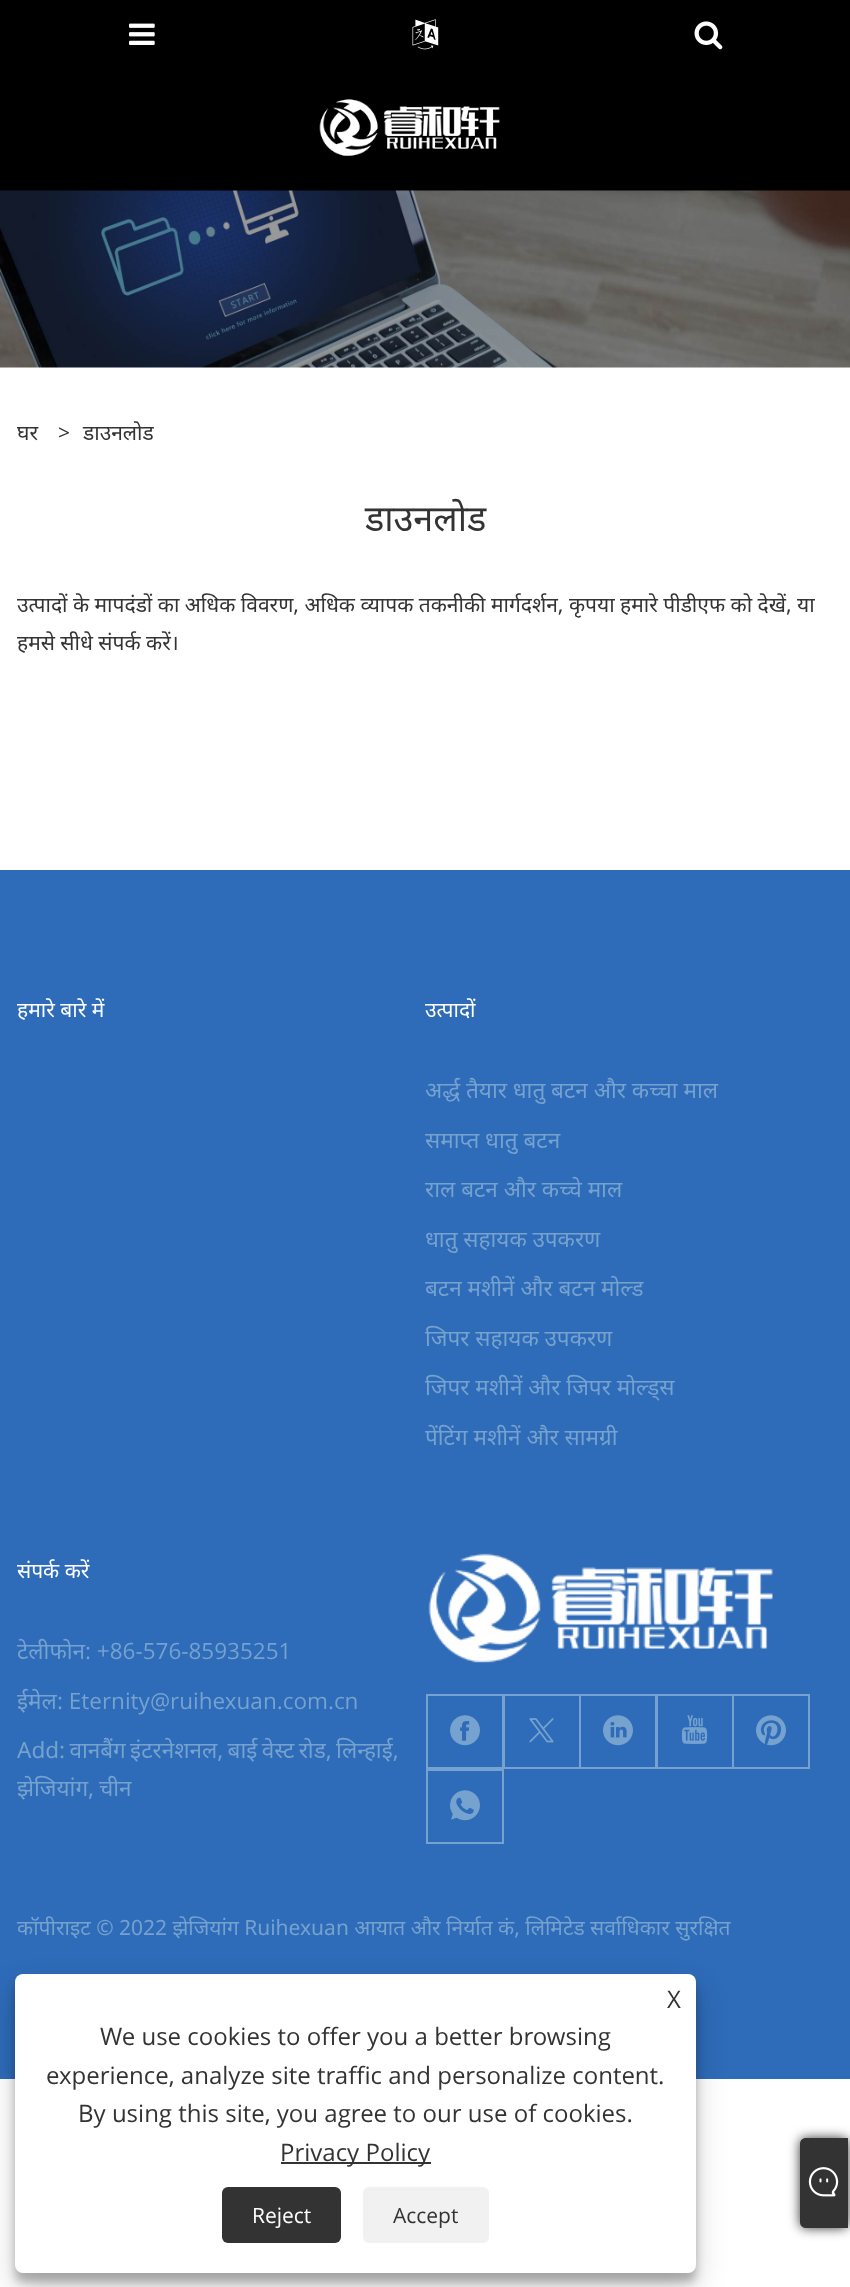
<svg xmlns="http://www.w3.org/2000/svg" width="850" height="2287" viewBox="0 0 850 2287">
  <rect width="100%" height="100%" fill="#fff"/>
  <path d="M0 0h850v191H0z" fill="#000"/>
  <image x="129" y="23" width="26" height="22" href="img/1.png"/>
  <image x="412" y="19" width="27" height="31" href="img/2.png"/>
  <image x="694" y="21" width="29" height="29" href="img/3.png"/>
  <image x="319" y="99" width="181" height="57" href="img/4.png"/>
  <image x="0" y="190" width="850" height="178" href="img/5.png"/>
  <path d="M0 870h850v1209H0z" fill="#2e6bb8"/>
  <image x="428" y="1553" width="345" height="110" href="img/6.png"/>
  <path d="M427 1695h76v73H427z" fill="none" stroke="#75a2ce" stroke-width="2"/>
  <image x="450" y="1715" width="30" height="31" href="img/7.png"/>
  <path d="M504 1695h76v73H504z" fill="none" stroke="#75a2ce" stroke-width="2"/>
  <image x="529" y="1718" width="25" height="25" href="img/8.png"/>
  <path d="M580 1695h76v73H580z" fill="none" stroke="#75a2ce" stroke-width="2"/>
  <image x="603" y="1715" width="30" height="31" href="img/9.png"/>
  <path d="M657 1695h76v73H657z" fill="none" stroke="#75a2ce" stroke-width="2"/>
  <image x="681" y="1715" width="27" height="29" href="img/10.png"/>
  <path d="M733 1695h76v73H733z" fill="none" stroke="#75a2ce" stroke-width="2"/>
  <image x="756" y="1715" width="30" height="31" href="img/11.png"/>
  <path d="M427 1770h76v73H427z" fill="none" stroke="#75a2ce" stroke-width="2"/>
  <image x="450" y="1790" width="30" height="31" href="img/12.png"/>
  <rect x="15" y="1983" width="681" height="299" rx="8" fill="#0000003b" filter="blur(4.5px)"/>
  <rect x="15" y="1989" width="681" height="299" rx="8" fill="#00000030" filter="blur(15px)"/>
  <rect x="15" y="1974" width="681" height="299" rx="8" fill="#fff"/>
  <path d="M281 2162h150v2H281z" fill="#333"/>
  <rect x="222" y="2187" width="119" height="56" rx="6" fill="#333"/>
  <rect x="363" y="2187" width="126" height="56" rx="6" fill="#f1f1f1"/>
  <rect x="800" y="2138" width="48" height="90" rx="6" fill="#333" filter="blur(6px)"/>
  <path d="M806 2138H848V2228H806C802.5 2228 800 2225.5 800 2222V2144C800 2140.5 802.5 2138 806 2138Z" fill="#333"/>
  <image x="808" y="2167" width="31" height="30" href="img/13.png"/>
  <text x="17" y="440" font-family="Noto Sans" font-size="21" fill="#333">घर</text>
  <text x="58" y="440" font-family="Open Sans" font-size="21" fill="#333">&gt;</text>
  <text x="83" y="440" font-family="Noto Sans" font-size="21" fill="#333">डाउनलोड</text>
  <text x="365" y="531" font-family="Noto Sans" font-size="36" fill="#333">डाउनलोड</text>
  <g font-family="Noto Sans" font-size="21" fill="#333">
    <text x="17" y="612">उत्पादों के मापदंडों का अधिक विवरण, अधिक व्यापक तकनीकी मार्गदर्शन, कृपया हमारे पीडीएफ को देखें, या</text>
    <text x="17" y="650">हमसे सीधे संपर्क करें।</text>
  </g>
  <g font-family="Noto Sans" font-size="21" fill="#fff">
    <text x="17" y="1017">हमारे बारे में</text>
    <text x="425" y="1017">उत्पादों</text>
  </g>
  <g font-family="Noto Sans" font-size="22.5" fill="#75a2ce">
    <text x="425" y="1098">अर्द्ध तैयार धातु बटन और कच्चा माल</text>
    <text x="425" y="1148">समाप्त धातु बटन</text>
    <text x="425" y="1197">राल बटन और कच्चे माल</text>
    <text x="425" y="1247">धातु सहायक उपकरण</text>
    <text x="425" y="1296">बटन मशीनें और बटन मोल्ड</text>
    <text x="425" y="1346">जिपर सहायक उपकरण</text>
    <text x="425" y="1395">जिपर मशीनें और जिपर मोल्ड्स</text>
    <text x="425" y="1445">पेंटिंग मशीनें और सामग्री</text>
  </g>
  <text x="17" y="1578" font-family="Noto Sans" font-size="21" fill="#fff">संपर्क करें</text>
  <text x="17" y="1659" font-family="Noto Sans" font-size="22.5" fill="#75a2ce">टेलीफोन</text>
  <text x="85" y="1659" font-family="Open Sans" font-size="22.5" fill="#75a2ce">: +86-576-85935251</text>
  <text x="17" y="1709" font-family="Noto Sans" font-size="22.5" fill="#75a2ce">ईमेल</text>
  <text x="57" y="1709" font-family="Open Sans" font-size="22.5" fill="#75a2ce">: Eternity@ruihexuan.com.cn</text>
  <g font-family="Noto Sans" font-size="22.5" fill="#75a2ce">
    <text x="17" y="1758" word-spacing="-1.5">Add: वानबैंग इंटरनेशनल, बाई वेस्ट रोड, लिन्हाई,</text>
    <text x="17" y="1796" word-spacing="-1">झेजियांग, चीन</text>
  </g>
  <text x="17" y="1935" word-spacing="-0.1" font-family="Noto Sans" font-size="21" fill="#75a2ce">कॉपीराइट © 2022 झेजियांग Ruihexuan आयात और निर्यात कं, लिमिटेड सर्वाधिकार सुरक्षित</text>
  <g font-family="Open Sans" font-size="24" fill="#333">
    <text x="667" y="2008">X</text>
    <text x="100" y="2045">We use cookies to offer you a better browsing</text>
    <text x="46" y="2084">experience, analyze site traffic and personalize content.</text>
    <text x="78" y="2122">By using this site, you agree to our use of cookies.</text>
    <text x="280" y="2161">Privacy Policy</text>
  </g>
  <text x="252" y="2223" font-family="Open Sans" font-size="21" fill="#fff">Reject</text>
  <text x="393" y="2223" font-family="Open Sans" font-size="21" fill="#333">Accept</text>
</svg>
